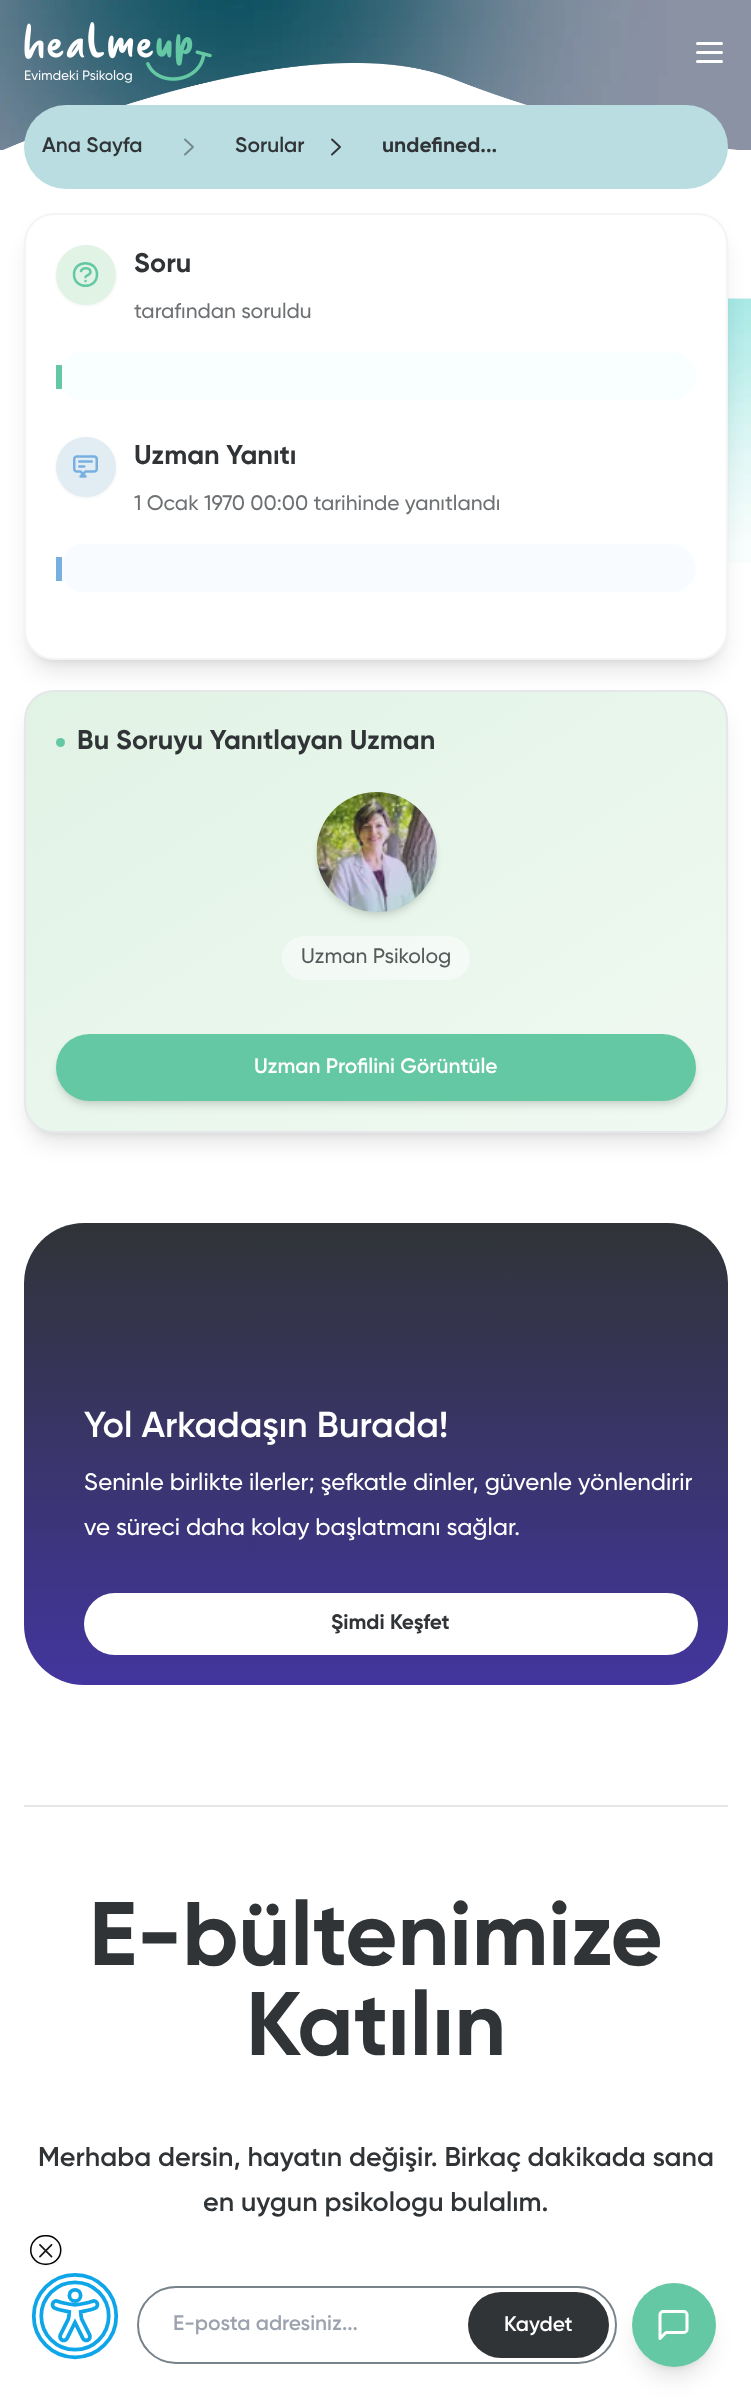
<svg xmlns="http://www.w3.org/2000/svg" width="751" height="2402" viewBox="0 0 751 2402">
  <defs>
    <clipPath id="clip1"><rect x="24" y="690" width="704" height="443" rx="30"/></clipPath>
    <linearGradient id="g1" gradientUnits="userSpaceOnUse" x1="178" y1="596" x2="574" y2="1227"><stop offset="0" stop-color="#e1f3e5"/><stop offset="1" stop-color="#f0f9f2"/></linearGradient>
    <linearGradient id="g2" gradientUnits="userSpaceOnUse" x1="336" y1="781" x2="417" y2="923"><stop offset="0.01" stop-color="#557888" stop-opacity="0.1"/><stop offset="0.55" stop-color="#8465c8" stop-opacity="0.3"/><stop offset="1" stop-color="#65c8a4" stop-opacity="0.5"/></linearGradient>
    <linearGradient id="g3" gradientUnits="userSpaceOnUse" x1="376" y1="1223" x2="376" y2="1685"><stop offset="0" stop-color="#303437"/><stop offset="1" stop-color="#43359e"/></linearGradient>
  </defs>
  <rect width="100%" height="100%" fill="#fff"/>
  <image x="0" y="0" width="751" height="150" href="img/2.png"/>
  <image x="3" y="63" width="734" height="87" href="img/3.png"/>
  <image x="24" y="22" width="188" height="61" href="img/1.png"/>
  <path d="M697.5 52.5H721.5M697.5 61.5H721.5M697.5 43.5H721.5" fill="none" stroke="#fff" stroke-width="3" stroke-linecap="round" stroke-linejoin="round"/>
  <rect x="24" y="105" width="704" height="84" rx="42" fill="#b9dde0"/>
  <path d="M185 154.5L193 147L185 139.5" fill="none" stroke="#75898c" stroke-width="1.9" stroke-linecap="round" stroke-linejoin="round"/>
  <path d="M332 154.5L340 147L332 139.5" fill="none" stroke="#303437" stroke-width="1.9" stroke-linecap="round" stroke-linejoin="round"/>
  <image x="728" y="298" width="23" height="265" href="img/6.png"/>
  <rect x="30" y="225" width="692" height="435" rx="24" fill="#0000001a" filter="blur(4.5px)"/>
  <rect x="29" y="233" width="694" height="438" rx="26" fill="#0000001a" filter="blur(11px)"/>
  <rect x="25" y="214" width="702" height="445" rx="29" fill="#fff" stroke="#f3f4f6" stroke-width="2"/>
  <rect x="56" y="246" width="60" height="60" rx="30" fill="#0000000d" filter="blur(1.5px)"/>
  <circle cx="86" cy="275" r="30" fill="#e1f3e5"/>
  <path d="M81 271C82.5 267 90.5 267.5 90.5 272C90.5 275.5 85.5 275 85.5 277M85.5 281H85.5M97 274.5C97 289.5 74 289.5 74 274.5C74 259.5 97 259.5 97 274.5Z" fill="none" stroke="#65c8a4" stroke-width="2.5" stroke-linecap="round" stroke-linejoin="round"/>
  <path d="M80 352H672C685 352 696 363 696 376C696 390 685 400 672 400H80C70 400 62 390 62 376C62 363 70 352 80 352Z" fill="#f8fffe"/>
  <path d="M56 365h6v24H56z" fill="#65c8a4"/>
  <rect x="56" y="438" width="60" height="60" rx="30" fill="#0000000d" filter="blur(1.5px)"/>
  <circle cx="86" cy="467" r="30" fill="#e1ecf3"/>
  <image x="73" y="455" width="25" height="23" href="img/4.png"/>
  <path d="M80 544H672C685 544 696 555 696 568C696 582 685 592 672 592H80C70 592 62 582 62 568C62 555 70 544 80 544Z" fill="#f8fbff"/>
  <path d="M56 557h6v24H56z" fill="#77b0df"/>
  <rect x="30" y="702" width="692" height="431" rx="24" fill="#0000001a" filter="blur(4.5px)"/>
  <rect x="29" y="710" width="694" height="433" rx="26" fill="#0000001a" filter="blur(11px)"/>
  <g clip-path="url(#clip1)">
    <path d="M26 692h700v439H26z" fill="url(#g1)"/>
  </g>
  <rect x="25" y="691" width="702" height="441" rx="29" fill="none" stroke="#e5e7eb" stroke-width="2"/>
  <circle cx="60.5" cy="742.5" r="4.5" fill="#65c8a4"/>
  <rect x="320" y="798" width="114" height="114" rx="57" fill="#0000001a" filter="blur(3px)"/>
  <rect x="318" y="800" width="117" height="117" rx="58.5" fill="#0000001a" filter="blur(4.5px)"/>
  <image x="316" y="792" width="121" height="120" href="img/5.png"/>
  <circle cx="377" cy="852" r="60" fill="url(#g2)"/>
  <rect x="282" y="936" width="188" height="44" rx="22" fill="#ffffff7a"/>
  <rect x="59" y="1040" width="634" height="61" rx="30.5" fill="#0000001a" filter="blur(3px)"/>
  <rect x="57" y="1041" width="638" height="65" rx="32.5" fill="#0000001a" filter="blur(4.5px)"/>
  <rect x="56" y="1034" width="640" height="67" rx="33.5" fill="#65c8a4"/>
  <rect x="24" y="1223" width="704" height="462" rx="60" fill="url(#g3)"/>
  <rect x="84" y="1593" width="614" height="62" rx="31" fill="#fff"/>
  <path d="M24 1805h704v2H24z" fill="#e4e6e7"/>
  <path d="M375 1805h1v1H375z" fill="#dddfe0"/>
  <rect x="138" y="2287" width="478" height="76" rx="38" fill="none" stroke="#788289" stroke-width="2"/>
  <rect x="468" y="2292" width="141" height="66" rx="33" fill="#303437"/>
  <image x="30" y="2235" width="89" height="125" href="img/7.png"/>
  <rect x="638" y="2295" width="72" height="72" rx="36" fill="#0000001a" filter="blur(4.5px)"/>
  <rect x="636" y="2303" width="75" height="75" rx="37.5" fill="#0000001a" filter="blur(11px)"/>
  <circle cx="674" cy="2325" r="42" fill="#65c8a4"/>
  <path d="M687 2329.5C687 2331 685.5 2332.5 684 2332.5H666L660 2338.5V2314.5C660 2313 661.5 2311.5 663 2311.5H684C685.5 2311.5 687 2313 687 2314.5Z" fill="none" stroke="#fff" stroke-width="3" stroke-linecap="round" stroke-linejoin="round"/>
  <g font-family="Gilroy" font-size="21" font-weight="600" fill="#303437">
    <text x="42" y="152">Ana Sayfa</text>
    <text x="235" y="152">Sorular</text>
  </g>
  <text x="382" y="152" font-family="Gilroy" font-size="21" font-weight="bold" fill="#303437">undefined...</text>
  <text x="134" y="272" font-family="Gilroy" font-size="27" font-weight="bold" fill="#303437">Soru</text>
  <text x="134" y="318" font-family="Gilroy" font-size="21" font-weight="500" fill="#6e7173">tarafından soruldu</text>
  <text x="134" y="464" font-family="Gilroy" font-size="27" font-weight="bold" fill="#303437">Uzman Yanıtı</text>
  <text x="134" y="510" font-family="Gilroy" font-size="21" font-weight="500" fill="#6e7173">1 Ocak 1970 00:00 tarihinde yanıtlandı</text>
  <text x="77" y="749" font-family="Gilroy" font-size="27" font-weight="bold" fill="#303437">Bu Soruyu Yanıtlayan Uzman</text>
  <text x="301" y="963" font-family="Gilroy" font-size="21" font-weight="500" fill="#555b5b">Uzman Psikolog</text>
  <text x="254" y="1073" font-family="Gilroy" font-size="21" font-weight="600" fill="#fff">Uzman Profilini Görüntüle</text>
  <text x="84" y="1437" font-family="Gilroy" font-size="36" font-weight="600" fill="#fff">Yol Arkadaşın Burada!</text>
  <g font-family="Gilroy" font-size="24" font-weight="500" fill="#fff">
    <text x="84" y="1490">Seninle birlikte ilerler; şefkatle dinler, güvenle yönlendirir</text>
    <text x="84" y="1535">ve süreci daha kolay başlatmanı sağlar.</text>
  </g>
  <text x="331" y="1629" font-family="Gilroy" font-size="21" font-weight="bold" fill="#303437">Şimdi Keşfet</text>
  <g font-family="Gilroy" font-size="90" font-weight="bold" fill="#303437">
    <text x="89" y="1965">E-bültenimize</text>
    <text x="246" y="2055">Katılın</text>
  </g>
  <g font-family="Gilroy" font-size="27" font-weight="600" fill="#303437">
    <text x="38" y="2166">Merhaba dersin, hayatın değişir. Birkaç dakikada sana</text>
    <text x="203" y="2211">en uygun psikologu bulalım.</text>
  </g>
  <text x="173" y="2330" font-family="Gilroy" font-size="21" font-weight="600" fill="#9ca3af">E-posta adresiniz...</text>
  <text x="504" y="2331" font-family="Gilroy" font-size="21" font-weight="600" fill="#fff">Kaydet</text>
</svg>
